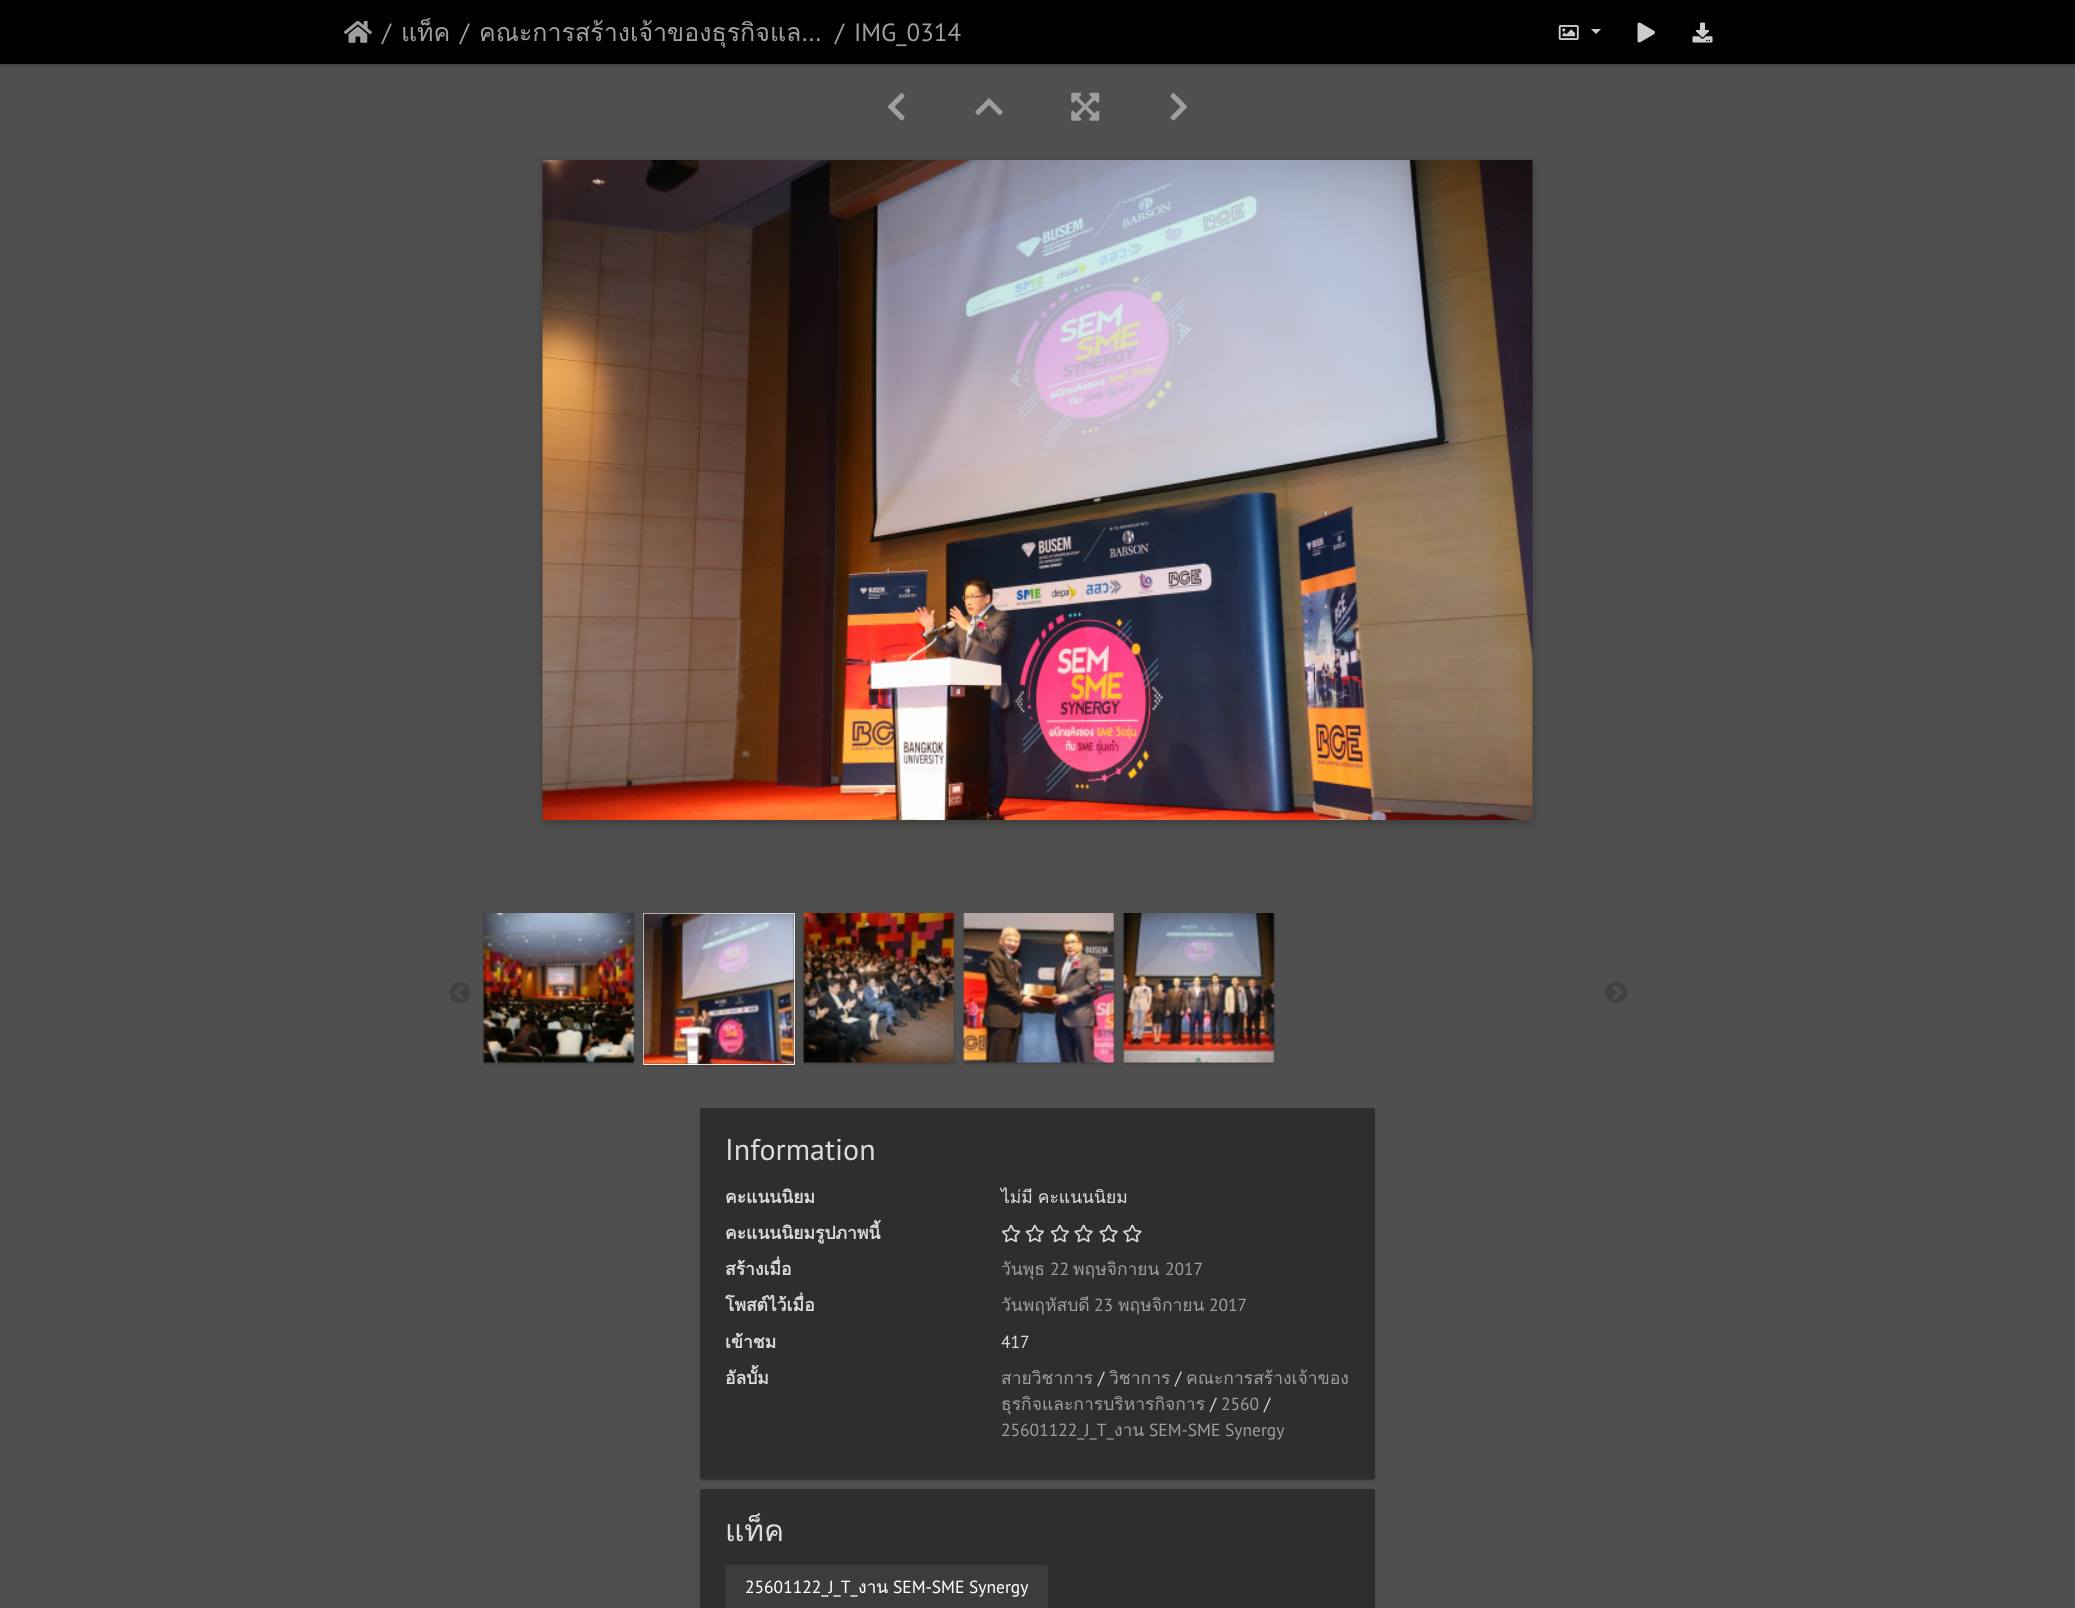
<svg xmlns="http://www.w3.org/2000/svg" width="2075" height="1608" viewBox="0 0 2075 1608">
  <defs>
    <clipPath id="clip1"><path d="M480 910H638V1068H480ZM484 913H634V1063H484Z" clip-rule="evenodd"/></clipPath>
    <clipPath id="clip2"><path d="M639 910H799V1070H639ZM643 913H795V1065H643Z" clip-rule="evenodd"/></clipPath>
    <clipPath id="clip3"><path d="M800 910H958V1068H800ZM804 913H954V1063H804Z" clip-rule="evenodd"/></clipPath>
    <clipPath id="clip4"><path d="M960 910H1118V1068H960ZM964 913H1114V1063H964Z" clip-rule="evenodd"/></clipPath>
    <clipPath id="clip5"><path d="M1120 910H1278V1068H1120ZM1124 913H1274V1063H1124Z" clip-rule="evenodd"/></clipPath>
  </defs>
  <rect width="100%" height="100%" fill="#4f4f4f"/>
  <path d="M0 1h2075v64H0z" fill="#0000003d" filter="blur(1px)"/>
  <path d="M0 0h2075v64H0z" fill="#000"/>
  <image x="344" y="20" width="28" height="23" href="img/1.png"/>
  <image x="1558" y="25" width="21" height="15" href="img/2.png"/>
  <path d="M1591 29H1601L1596 34Z" fill="#ccc"/>
  <image x="1637" y="22" width="18" height="21" href="img/3.png"/>
  <image x="1692" y="22" width="21" height="21" href="img/4.png"/>
  <image x="888" y="93" width="17" height="28" href="img/5.png"/>
  <image x="975" y="98" width="28" height="17" href="img/6.png"/>
  <image x="1071" y="92" width="29" height="29" href="img/7.png"/>
  <image x="1170" y="93" width="17" height="28" href="img/8.png"/>
  <path d="M543 164h990v660H543z" fill="#0000003b" filter="blur(4px)"/>
  <image x="542" y="160" width="991" height="660" href="img/9.png"/>
  <image x="449" y="982" width="22" height="21" href="img/10.png"/>
  <g clip-path="url(#clip1)">
    <path d="M484 914h150v150H484z" fill="#0000003d" filter="blur(1px)"/>
  </g>
  <image x="483" y="913" width="152" height="150" href="img/11.png"/>
  <g clip-path="url(#clip2)">
    <path d="M643 914h152v152H643z" fill="#0000003d" filter="blur(1px)"/>
  </g>
  <path d="M643.5 913.5h151v151H643.5z" fill="none" stroke="#fff"/>
  <image x="643" y="913" width="152" height="152" href="img/12.png"/>
  <g clip-path="url(#clip3)">
    <path d="M804 914h150v150H804z" fill="#0000003d" filter="blur(1px)"/>
  </g>
  <image x="803" y="913" width="152" height="150" href="img/13.png"/>
  <g clip-path="url(#clip4)">
    <path d="M964 914h150v150H964z" fill="#0000003d" filter="blur(1px)"/>
  </g>
  <image x="963" y="913" width="152" height="150" href="img/14.png"/>
  <g clip-path="url(#clip5)">
    <path d="M1124 914h150v150H1124z" fill="#0000003d" filter="blur(1px)"/>
  </g>
  <image x="1123" y="913" width="152" height="150" href="img/15.png"/>
  <image x="1605" y="982" width="22" height="21" href="img/16.png"/>
  <path d="M703 1114h670v366H703z" fill="#00000033" filter="blur(0.5px)"/>
  <rect x="700" y="1110" width="675" height="371" rx="2.5" fill="#00000024" filter="blur(1px)"/>
  <rect x="700" y="1108" width="675" height="371" rx="2.5" fill="#2e2e2e"/>
  <image x="1002" y="1224" width="19" height="19" href="img/17.png"/>
  <image x="1025" y="1224" width="19" height="19" href="img/18.png"/>
  <image x="1050" y="1224" width="19" height="19" href="img/18.png"/>
  <image x="1074" y="1224" width="19" height="19" href="img/19.png"/>
  <image x="1099" y="1224" width="19" height="19" href="img/19.png"/>
  <image x="1123" y="1224" width="19" height="19" href="img/20.png"/>
  <rect x="700" y="1491" width="675" height="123" rx="2.5" fill="#00000024" filter="blur(1px)"/>
  <rect x="700" y="1489" width="675" height="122" rx="2.5" fill="#2e2e2e"/>
  <rect x="725" y="1565" width="323" height="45" rx="2.5" fill="#3c3c3c"/>
  <text x="382" y="41" font-family="PT Sans" font-size="25" fill="#9e9e9e">/</text>
  <text x="401" y="41" font-family="Loma" font-size="25" fill="#9e9e9e">แท็ค</text>
  <text x="460" y="41" font-family="PT Sans" font-size="25" fill="#9e9e9e">/</text>
  <text x="479" y="41" font-family="Loma" font-size="25" fill="#9e9e9e">คณะการสร้างเจ้าของธุรกิจแล…</text>
  <g font-family="PT Sans" font-size="25" fill="#9e9e9e">
    <text x="835" y="41">/</text>
    <text x="854" y="41">IMG_0314</text>
  </g>
  <text x="725" y="1160" font-family="PT Sans" font-size="30" fill="#dbdbdb">Information</text>
  <text x="725" y="1203" font-family="Loma" font-size="17.5" font-weight="bold" fill="#dbdbdb">คะแนนนิยม</text>
  <text x="1001" y="1203" word-spacing="-1" font-family="Loma" font-size="17.5" fill="#dbdbdb">ไม่มี คะแนนนิยม</text>
  <g font-family="Loma" font-size="17.5" font-weight="bold" fill="#dbdbdb">
    <text x="725" y="1239">คะแนนนิยมรูปภาพนี้</text>
    <text x="725" y="1275">สร้างเมื่อ</text>
  </g>
  <text x="1001" y="1275" font-family="Loma" font-size="17.5" fill="#9e9e9e">วันพุธ</text>
  <text x="1050" y="1275" font-family="PT Sans" font-size="17.5" fill="#9e9e9e">22</text>
  <text x="1073" y="1275" font-family="Loma" font-size="17.5" fill="#9e9e9e">พฤษจิกายน</text>
  <text x="1165" y="1275" font-family="PT Sans" font-size="17.5" fill="#9e9e9e">2017</text>
  <text x="725" y="1311" font-family="Loma" font-size="17.5" font-weight="bold" fill="#dbdbdb">โพสต์ไว้เมื่อ</text>
  <text x="1001" y="1311" font-family="Loma" font-size="17.5" fill="#9e9e9e">วันพฤหัสบดี</text>
  <text x="1094" y="1311" font-family="PT Sans" font-size="17.5" fill="#9e9e9e">23</text>
  <text x="1118" y="1311" font-family="Loma" font-size="17.5" fill="#9e9e9e">พฤษจิกายน</text>
  <text x="1209" y="1311" font-family="PT Sans" font-size="17.5" fill="#9e9e9e">2017</text>
  <text x="725" y="1348" font-family="Loma" font-size="17.5" font-weight="bold" fill="#dbdbdb">เข้าชม</text>
  <text x="1001" y="1348" font-family="PT Sans" font-size="17.5" fill="#dbdbdb">417</text>
  <text x="725" y="1384" font-family="Loma" font-size="17.5" font-weight="bold" fill="#dbdbdb">อัลบั้ม</text>
  <g font-family="Loma" font-size="17.5" fill="#9e9e9e">
    <text x="1001" y="1384">สายวิชาการ</text>
    <text x="1186" y="1384">คณะการสร้างเจ้าของ</text>
  </g>
  <text x="1098" y="1384" font-family="PT Sans" font-size="17.5" fill="#dbdbdb">/</text>
  <text x="1109" y="1384" font-family="Loma" font-size="17.5" fill="#9e9e9e">วิชาการ</text>
  <text x="1175" y="1384" font-family="PT Sans" font-size="17.5" fill="#dbdbdb">/</text>
  <text x="1001" y="1410" font-family="Loma" font-size="17.5" fill="#9e9e9e">ธุรกิจและการบริหารกิจการ</text>
  <text x="1210" y="1410" font-family="PT Sans" font-size="17.5" fill="#dbdbdb">/</text>
  <text x="1221" y="1410" font-family="PT Sans" font-size="17.5" fill="#9e9e9e">2560</text>
  <text x="1264" y="1410" font-family="PT Sans" font-size="17.5" fill="#dbdbdb">/</text>
  <text x="1001" y="1436" font-family="PT Sans" font-size="17.5" fill="#9e9e9e">25601122_J_T_</text>
  <text x="1114" y="1436" font-family="Loma" font-size="17.5" fill="#9e9e9e">งาน</text>
  <text x="1149" y="1436" font-family="PT Sans" font-size="17.5" fill="#9e9e9e">SEM-SME Synergy</text>
  <text x="725" y="1541" font-family="Loma" font-size="30" fill="#dbdbdb">แท็ค</text>
  <text x="745" y="1593" font-family="PT Sans" font-size="17.5" fill="#fff">25601122_J_T_</text>
  <text x="858" y="1593" font-family="Loma" font-size="17.5" fill="#fff">งาน</text>
  <text x="893" y="1593" font-family="PT Sans" font-size="17.5" fill="#fff">SEM-SME Synergy</text>
</svg>
